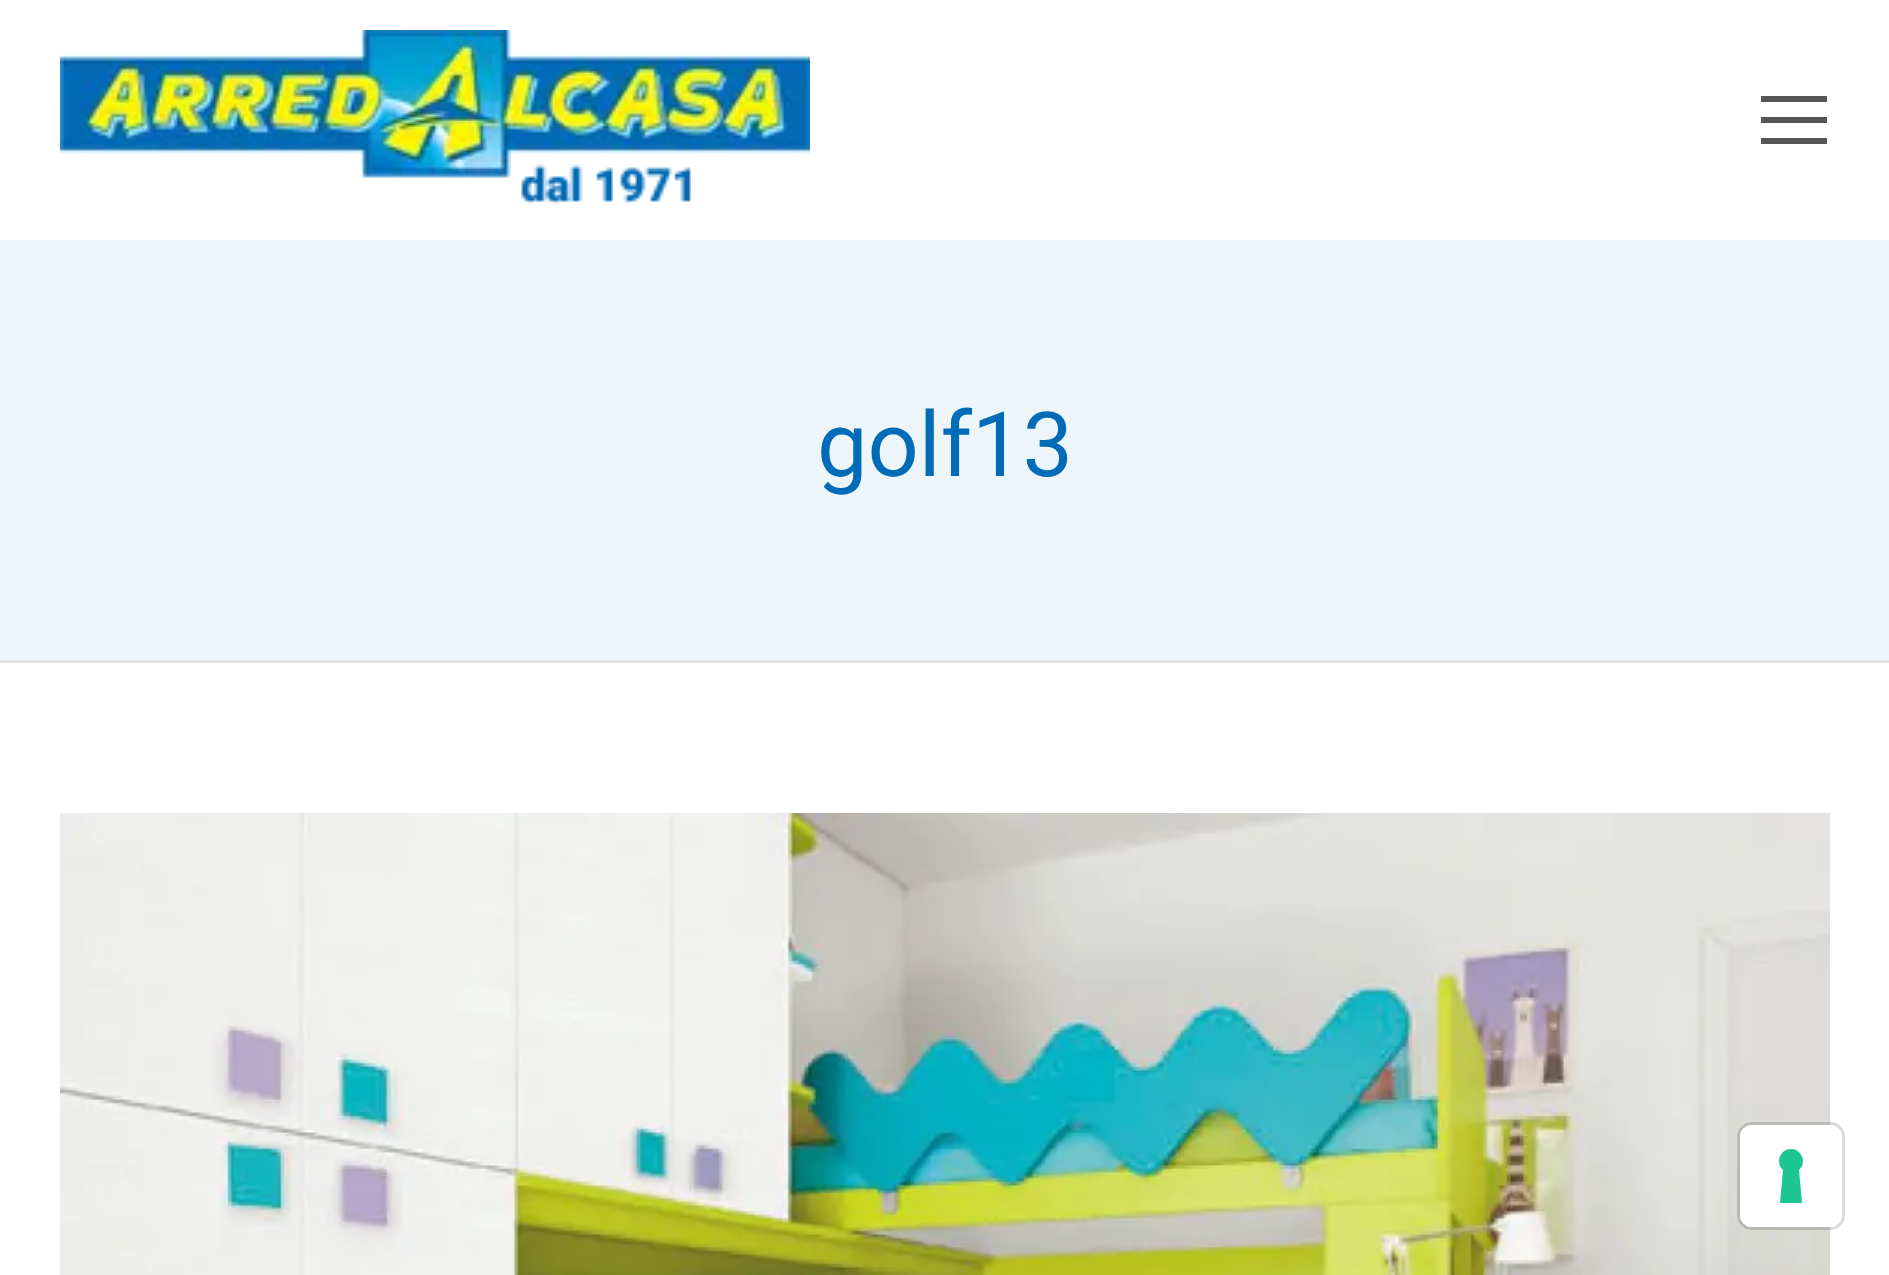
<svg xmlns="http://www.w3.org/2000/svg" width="1889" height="1275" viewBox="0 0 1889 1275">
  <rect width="100%" height="100%" fill="#fff"/>
  <image x="60" y="30" width="750" height="175" href="img/1.png"/>
  <path d="M1761 96h66v6H1761z" fill="#565656"/>
  <path d="M1761 117h66v6H1761z" fill="#565656"/>
  <path d="M1761 138h66v6H1761z" fill="#565656"/>
  <path d="M0 240h1889v420H0z" fill="#edf5fa"/>
  <path d="M0 660h1889v3H0z" fill="#e3e3e3"/>
  <image x="60" y="813" width="1770" height="462" href="img/2.png"/>
  <rect x="1738.5" y="1123.5" width="105" height="105" rx="13.5" fill="none" stroke="#00000026" stroke-width="3"/>
  <rect x="1740" y="1125" width="102" height="102" rx="12" fill="#fff"/>
  <path d="M1791 1149C1802 1149 1807 1163 1799 1170L1802 1203H1780L1783 1170C1775 1163 1780 1149 1791 1149Z" fill="#1cc691" fill-rule="evenodd"/>
  <text x="817" y="476" font-family="Roboto" font-size="90" fill="#006bb6">golf13</text>
</svg>
